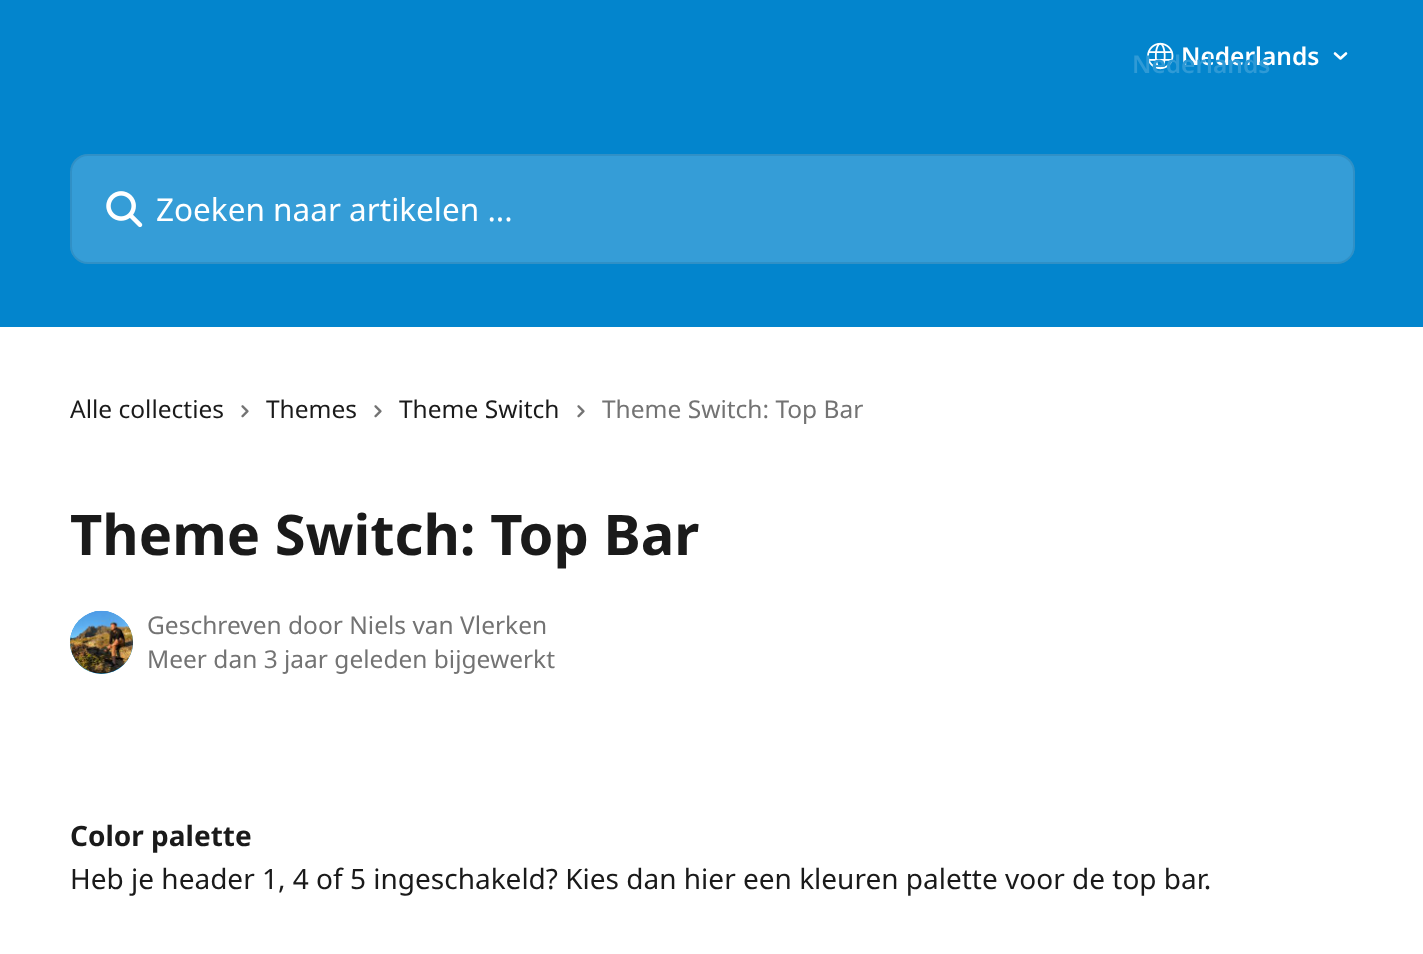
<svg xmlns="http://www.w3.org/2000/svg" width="1423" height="954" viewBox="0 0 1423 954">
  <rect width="100%" height="100%" fill="#fff"/>
  <path d="M0 0h1423v327H0z" fill="#0385cd"/>
  <image x="1147" y="42" width="27" height="28" href="img/1.png"/>
  <path d="M1335 53.5L1340.5 58.5L1346 53.5" fill="none" stroke="#fff" stroke-width="2.6" stroke-linecap="round" stroke-linejoin="round"/>
  <rect x="70" y="154" width="1285" height="110" rx="18" fill="#ffffff33"/>
  <rect x="71" y="155" width="1283" height="108" rx="17" fill="none" stroke="#00000014" stroke-width="2"/>
  <image x="106" y="191" width="37" height="37" href="img/2.png"/>
  <image x="241" y="405" width="8" height="13" href="img/3.png"/>
  <image x="374" y="405" width="8" height="13" href="img/3.png"/>
  <image x="577" y="405" width="8" height="13" href="img/3.png"/>
  <circle cx="101.5" cy="642.5" r="31.5" fill="#0387ce"/>
  <image x="70" y="610" width="63" height="64" href="img/4.png"/>
  <text x="1181" y="65" font-family="Noto Sans" font-size="24.5" font-weight="600" fill="#fff">Nederlands</text>
  <text x="1132" y="73" font-family="Noto Sans" font-size="24.5" font-weight="600" fill="#2f9ad6">Nederlands</text>
  <text x="156" y="221" font-family="Noto Sans" font-size="31.5" fill="#fff">Zoeken naar artikelen ...</text>
  <g font-family="Noto Sans" font-size="24.5" fill="#1a1a1a">
    <text x="70" y="418">Alle collecties</text>
    <text x="266" y="418">Themes</text>
    <text x="399" y="418">Theme Switch</text>
  </g>
  <text x="602" y="418" font-family="Noto Sans" font-size="24.5" fill="#737373">Theme Switch: Top Bar</text>
  <text x="70" y="555" font-family="Noto Sans" font-size="56" font-weight="bold" fill="#1a1a1a">Theme Switch: Top Bar</text>
  <g font-family="Noto Sans" font-size="24.5" fill="#737373">
    <text x="147" y="634">Geschreven door Niels van Vlerken</text>
    <text x="147" y="668">Meer dan 3 jaar geleden bijgewerkt</text>
  </g>
  <text x="70" y="846" font-family="Noto Sans" font-size="28" font-weight="bold" fill="#1a1a1a">Color palette</text>
  <text x="70" y="889" font-family="Noto Sans" font-size="28" fill="#1a1a1a">Heb je header 1, 4 of 5 ingeschakeld? Kies dan hier een kleuren palette voor de top bar.</text>
</svg>
